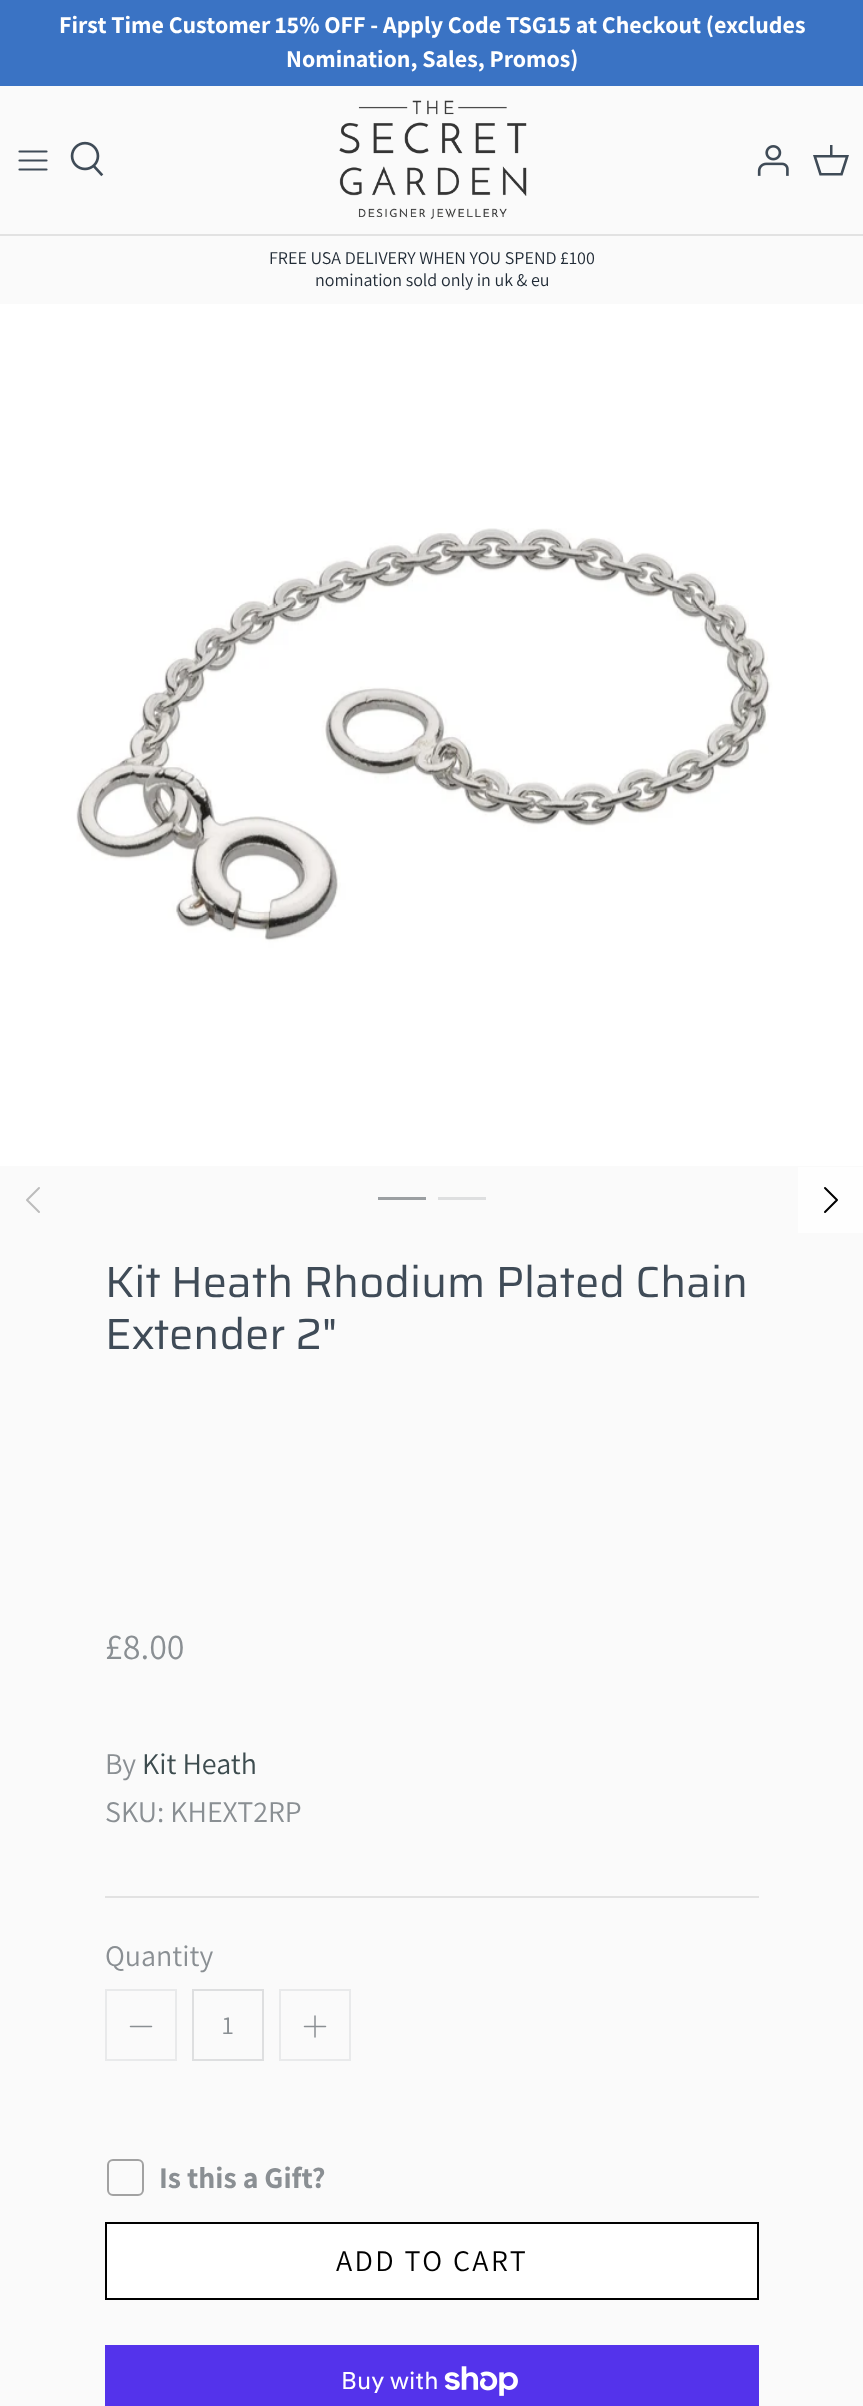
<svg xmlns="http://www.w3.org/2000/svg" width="863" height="2406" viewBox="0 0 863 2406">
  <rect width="100%" height="100%" fill="#fafafa"/>
  <path d="M0 0h863v86H0z" fill="#3a73c4"/>
  <path d="M0 234h863v2H0z" fill="#e2e2e2"/>
  <path d="M19.5 160.5H46.5M19.5 151.5H46.5M19.5 169.5H46.5" fill="none" stroke="#3f4b57" stroke-width="2.2" stroke-linecap="round" stroke-linejoin="round"/>
  <image x="70" y="141" width="34" height="36" href="img/1.png"/>
  <image x="339" y="100" width="188" height="119" href="img/2.png"/>
  <image x="757" y="145" width="32" height="31" href="img/3.png"/>
  <path d="M830 155V145H832.5V155H849L842.5 175.5H819.5L813 155ZM816.5 157.5L821.5 173H840.5L845.5 157.5Z" fill="#3f4b57"/>
  <image x="0" y="304" width="863" height="862" href="img/4.png"/>
  <path d="M39 1212L27 1200L39 1188" fill="none" stroke="#bcbcbc" stroke-width="2" stroke-linecap="round" stroke-linejoin="round"/>
  <path d="M798 1167h65v66H798z" fill="#fefefe"/>
  <path d="M825 1212L837 1200L825 1188" fill="none" stroke="#000" stroke-width="2" stroke-linecap="round" stroke-linejoin="round"/>
  <path d="M378 1197h48v3H378z" fill="#9b9fa2"/>
  <path d="M438 1197h48v3H438z" fill="#dedfe0"/>
  <path d="M105 1896h654v2H105z" fill="#e2e2e2"/>
  <path d="M106 1990h70v70H106z" fill="none" stroke="#e9eaeb" stroke-width="2"/>
  <path d="M130.5 2026.5H151.5" fill="none" stroke="#8a8f93" stroke-width="1.5" stroke-linecap="round" stroke-linejoin="round"/>
  <path d="M193 1990h70v70H193z" fill="none" stroke="#dedfe0" stroke-width="2"/>
  <path d="M280 1990h70v70H280z" fill="none" stroke="#e9eaeb" stroke-width="2"/>
  <path d="M315 2016V2037M304.5 2026.5H325.5" fill="none" stroke="#8a8f93" stroke-width="1.5" stroke-linecap="round" stroke-linejoin="round"/>
  <rect x="108" y="2160" width="35" height="35" rx="5" fill="none" stroke="#a2a2a2" stroke-width="2"/>
  <path d="M106 2223h652v76H106z" fill="#fff" stroke="#000" stroke-width="2"/>
  <path d="M105 2345h654v61H105z" fill="#5433eb"/>
  <image x="444" y="2366" width="74" height="30" href="img/5.png"/>
  <g font-family="Assistant" font-size="24" font-weight="bold" fill="#fff">
    <text x="59" y="33">First Time Customer 15% OFF - Apply Code TSG15 at Checkout (excludes</text>
    <text x="286" y="67">Nomination, Sales, Promos)</text>
  </g>
  <g font-family="Assistant" font-size="18" fill="#212b36">
    <text x="269" y="264">FREE USA DELIVERY WHEN YOU SPEND £100</text>
    <text x="315" y="286">nomination sold only in uk &amp; eu</text>
  </g>
  <g font-family="Saira" font-size="43.5" fill="#3f4b57">
    <text x="105" y="1297">Kit Heath Rhodium Plated Chain</text>
    <text x="105" y="1349">Extender 2"</text>
  </g>
  <text x="105" y="1659" font-family="Assistant" font-size="36" fill="#8a8f93">£8.00</text>
  <text x="105" y="1774" font-family="Assistant" font-size="30" fill="#8a8f93">By</text>
  <text x="142" y="1774" font-family="Assistant" font-size="30" fill="#3d4c4f">Kit Heath</text>
  <g font-family="Assistant" font-size="30" fill="#8a8f93">
    <text x="105" y="1822">SKU: KHEXT2RP</text>
    <text x="105" y="1966">Quantity</text>
  </g>
  <text x="222" y="2034" font-family="Assistant" font-size="26" fill="#8a8f93">1</text>
  <text x="159" y="2188" font-family="Assistant" font-size="30" font-weight="bold" fill="#8a8f93">Is this a Gift?</text>
  <text x="336" y="2271" font-family="Assistant" font-size="30" letter-spacing="2.4" fill="#000">ADD TO CART</text>
  <text x="341" y="2389" font-family="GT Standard" font-size="24" fill="#fff">Buy with</text>
</svg>
